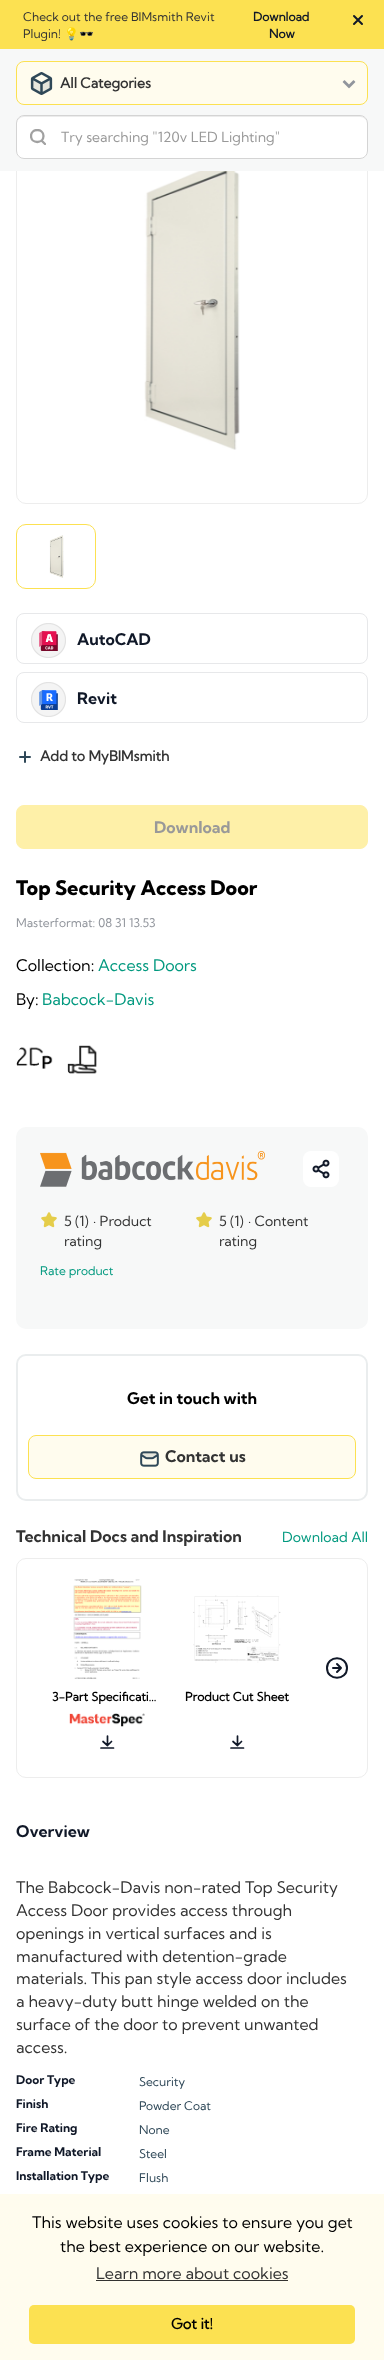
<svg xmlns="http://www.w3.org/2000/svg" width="384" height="2360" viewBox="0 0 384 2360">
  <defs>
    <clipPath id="clip1"><path d="M30 129h16v16H30z"/></clipPath>
  </defs>
  <rect width="100%" height="100%" fill="#fff"/>
  <path d="M0 0h384v49H0z" fill="#fce151"/>
  <path d="M362 16L354 24M354 16L362 24" fill="none" stroke="#101828" stroke-width="2" stroke-linecap="round" stroke-linejoin="round"/>
  <rect x="16.5" y="102.5" width="351" height="401" rx="9.5" fill="none" stroke="#ededed"/>
  <path d="M0 49h384v122H0z" fill="#f7f8f8"/>
  <rect x="16.5" y="61.5" width="351" height="43" rx="7.5" fill="#fffcee" stroke="#fce151"/>
  <image x="30" y="72" width="23" height="23" href="img/1.png"/>
  <image x="342" y="80" width="14" height="9" href="img/2.png"/>
  <rect x="16" y="115" width="352" height="44" rx="8" fill="#fff"/>
  <path d="M24 117H360C364 117 367 120 367 124V123C367 119 364 116 360 116H24C20 116 17 119 17 123V124C17 120 20 117 24 117Z" fill="#ececec"/>
  <rect x="16.5" y="115.5" width="351" height="43" rx="7.5" fill="none" stroke="#d4d4d4"/>
  <g clip-path="url(#clip1)">
    <path d="M45 144L41.5 140.5M43.5 136C43.5 144 31 144 31 136C31 128 43.5 128 43.5 136Z" fill="none" stroke="#a1a1a1" stroke-width="2.3" stroke-linecap="round" stroke-linejoin="round"/>
  </g>
  <image x="144" y="171" width="96" height="279" href="img/3.png"/>
  <rect x="16.5" y="524.5" width="79" height="64" rx="9.5" fill="none" stroke="#fce151"/>
  <image x="49" y="535" width="15" height="43" href="img/4.png"/>
  <rect x="16.5" y="613.5" width="351" height="50" rx="7.5" fill="none" stroke="#e7e8ea"/>
  <image x="31" y="623" width="35" height="35" href="img/5.png"/>
  <rect x="16.5" y="672.5" width="351" height="50" rx="7.5" fill="none" stroke="#e7e8ea"/>
  <image x="31" y="682" width="35" height="35" href="img/6.png"/>
  <path d="M25 752V762M20 757H30" fill="none" stroke="#2f4858" stroke-width="2" stroke-linecap="round" stroke-linejoin="round"/>
  <rect x="16.5" y="805.5" width="351" height="43" rx="7.5" fill="#fef0a8" stroke="#fef0a8"/>
  <image x="16" y="1047" width="37" height="22" href="img/7.png"/>
  <image x="67" y="1045" width="30" height="29" href="img/8.png"/>
  <rect x="16" y="1127" width="352" height="202" rx="10" fill="#f7f8f8"/>
  <image x="40" y="1151" width="225" height="36" href="img/9.png"/>
  <rect x="303" y="1151" width="36" height="36" rx="8" fill="#fff"/>
  <image x="312" y="1159" width="18" height="20" href="img/10.png"/>
  <image x="41" y="1212" width="16" height="16" href="img/11.png"/>
  <image x="196" y="1212" width="16" height="16" href="img/11.png"/>
  <rect x="17" y="1355" width="350" height="145" rx="9" fill="none" stroke="#eaedee" stroke-width="2"/>
  <rect x="28.5" y="1435.5" width="327" height="43" rx="7.5" fill="#fffcee" stroke="#fce151"/>
  <image x="140" y="1451" width="19" height="16" href="img/12.png"/>
  <rect x="16.5" y="1558.5" width="351" height="219" rx="9.5" fill="none" stroke="#ededed"/>
  <path d="M337 1672L341 1668M341 1668L337 1664M341 1668H333M347 1668C347 1681 327 1681 327 1668C327 1655 347 1655 347 1668Z" fill="none" stroke="#101828" stroke-width="2" stroke-linecap="round" stroke-linejoin="round"/>
  <image x="73" y="1579" width="69" height="100" href="img/13.png"/>
  <image x="69" y="1713" width="76" height="14" href="img/14.png"/>
  <path d="M113.5 1748H101M111.5 1741.5L107.5 1745.5M107.5 1745.5L103 1741.5M107.5 1745.5V1736" fill="none" stroke="#101828" stroke-width="1.7" stroke-linecap="round" stroke-linejoin="round"/>
  <image x="193" y="1595" width="88" height="68" href="img/15.png"/>
  <path d="M243.5 1748H231M241.5 1741.5L237.5 1745.5M237.5 1745.5L233 1741.5M237.5 1745.5V1736" fill="none" stroke="#101828" stroke-width="1.7" stroke-linecap="round" stroke-linejoin="round"/>
  <path d="M0 2194h384v166H0z" fill="#fffcee"/>
  <path d="M96 2280h192v1H96z" fill="#333230"/>
  <rect x="29" y="2305" width="326" height="39" rx="5" fill="#fce151"/>
  <text x="23" y="21" font-family="Kumbh Sans" font-size="12" fill="#333">Check out the free BIMsmith Revit</text>
  <g font-family="Kumbh Sans" font-size="12" font-weight="bold" fill="#101828">
    <text x="253" y="21">Download</text>
    <text x="269" y="38">Now</text>
  </g>
  <text x="23" y="38" font-family="Kumbh Sans" font-size="12" fill="#333">Plugin!</text>
  <text x="64" y="38" font-family="Noto Color Emoji" font-size="12" fill="#333">💡🕶️</text>
  <text x="60" y="88" font-family="Kumbh Sans" font-size="14" font-weight="bold" fill="#333">All Categories</text>
  <text x="61" y="142" font-family="Kumbh Sans" font-size="14" fill="#999">Try searching "120v LED Lighting"</text>
  <g font-family="'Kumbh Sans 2'" font-size="16" font-weight="bold" fill="#101828">
    <text x="77" y="645">AutoCAD</text>
    <text x="77" y="704">Revit</text>
  </g>
  <text x="40" y="761" font-family="Kumbh Sans" font-size="14" font-weight="bold" fill="#333">Add to MyBIMsmith</text>
  <text x="154" y="833" font-family="'Kumbh Sans 2'" font-size="16" font-weight="bold" fill="#999">Download</text>
  <text x="16" y="895" font-family="Kumbh Sans" font-size="20" font-weight="800" fill="#000">Top Security Access Door</text>
  <text x="16" y="927" font-family="Kumbh Sans" font-size="12" fill="#91959c">Masterformat: 08 31 13.53</text>
  <text x="16" y="971" font-family="Kumbh Sans" font-size="16" fill="#000">Collection:</text>
  <text x="98" y="971" font-family="Kumbh Sans" font-size="16" fill="#02997f">Access Doors</text>
  <text x="16" y="1005" font-family="Kumbh Sans" font-size="16" fill="#000">By:</text>
  <text x="42" y="1005" font-family="Kumbh Sans" font-size="16" fill="#02997f">Babcock-Davis</text>
  <g font-family="Kumbh Sans" font-size="14" fill="#333">
    <text x="64" y="1226">5 (1)</text>
    <text x="93" y="1226">· Product</text>
    <text x="64" y="1246">rating</text>
    <text x="219" y="1226">5 (1)</text>
    <text x="248" y="1226">· Content</text>
    <text x="219" y="1246">rating</text>
  </g>
  <text x="40" y="1275" font-family="Kumbh Sans" font-size="12" fill="#02997f">Rate product</text>
  <text x="127" y="1404" font-family="'Kumbh Sans 2'" font-size="16" font-weight="bold" fill="#000">Get in touch with</text>
  <g font-family="'Kumbh Sans 2'" font-size="16" font-weight="bold" fill="#333">
    <text x="165" y="1462">Contact us</text>
    <text x="16" y="1542">Technical Docs and Inspiration</text>
  </g>
  <text x="282" y="1542" font-family="Kumbh Sans" font-size="14" fill="#02997f">Download All</text>
  <g font-family="Kumbh Sans" font-size="12" font-weight="bold" fill="#000">
    <text x="52" y="1701">3-Part Specificati…</text>
    <text x="185" y="1701">Product Cut Sheet</text>
  </g>
  <text x="16" y="1837" font-family="'Kumbh Sans 2'" font-size="16" font-weight="bold" fill="#101828">Overview</text>
  <g font-family="Kumbh Sans" font-size="16" fill="#333">
    <text x="16" y="1893">The Babcock-Davis non-rated Top Security</text>
    <text x="16" y="1916">Access Door provides access through</text>
    <text x="16" y="1939">openings in vertical surfaces and is</text>
    <text x="16" y="1962">manufactured with detention-grade</text>
    <text x="16" y="1984">materials. This pan style access door includes</text>
    <text x="16" y="2007">a heavy-duty butt hinge welded on the</text>
    <text x="16" y="2030">surface of the door to prevent unwanted</text>
    <text x="16" y="2053">access.</text>
  </g>
  <text x="16" y="2084" font-family="'Kumbh Sans 2'" font-size="12" font-weight="bold" fill="#101828">Door Type</text>
  <text x="139" y="2086" font-family="Kumbh Sans" font-size="12" fill="#2f4858">Security</text>
  <text x="16" y="2108" font-family="'Kumbh Sans 2'" font-size="12" font-weight="bold" fill="#101828">Finish</text>
  <text x="139" y="2110" font-family="Kumbh Sans" font-size="12" fill="#2f4858">Powder Coat</text>
  <text x="16" y="2132" font-family="'Kumbh Sans 2'" font-size="12" font-weight="bold" fill="#101828">Fire Rating</text>
  <text x="139" y="2134" font-family="Kumbh Sans" font-size="12" fill="#2f4858">None</text>
  <text x="16" y="2156" font-family="'Kumbh Sans 2'" font-size="12" font-weight="bold" fill="#101828">Frame Material</text>
  <text x="139" y="2158" font-family="Kumbh Sans" font-size="12" fill="#2f4858">Steel</text>
  <text x="16" y="2180" font-family="'Kumbh Sans 2'" font-size="12" font-weight="bold" fill="#101828">Installation Type</text>
  <text x="139" y="2182" font-family="Kumbh Sans" font-size="12" fill="#2f4858">Flush</text>
  <g font-family="Kumbh Sans" font-size="16" fill="#000">
    <text x="32" y="2228">This website uses cookies to ensure you get</text>
    <text x="60" y="2252">the best experience on our website.</text>
  </g>
  <text x="96" y="2279" font-family="Kumbh Sans" font-size="16" fill="#333">Learn more about cookies</text>
  <text x="171" y="2329" font-family="Kumbh Sans" font-size="14.5" font-weight="bold" fill="#000">Got it!</text>
</svg>
